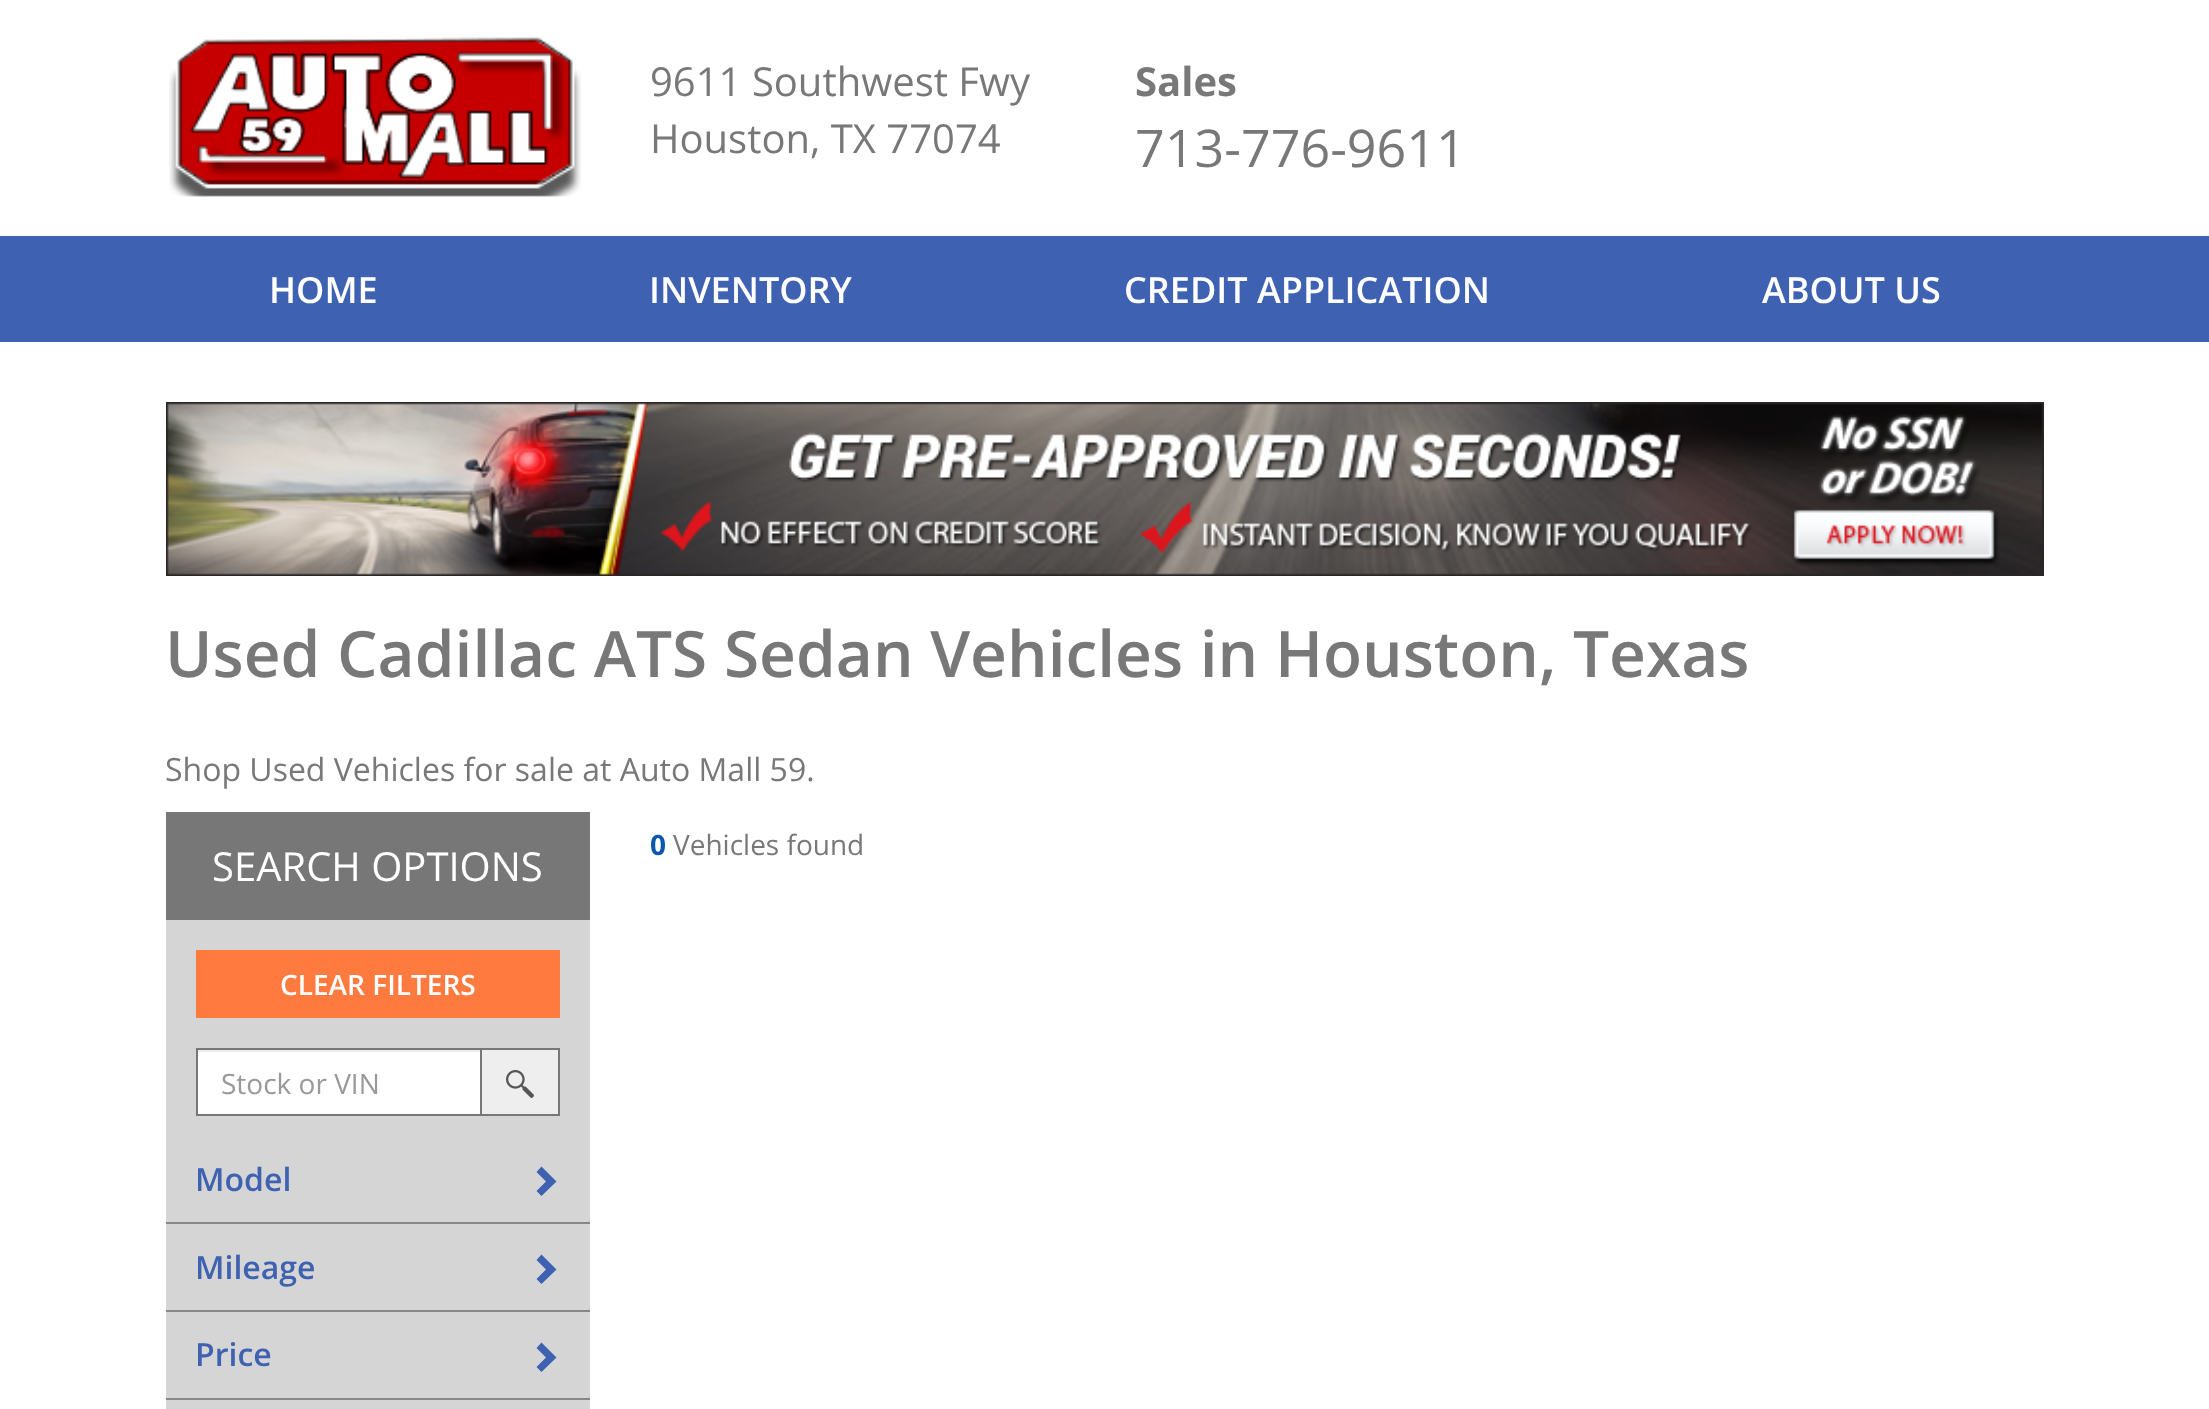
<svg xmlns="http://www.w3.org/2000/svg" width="2209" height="1409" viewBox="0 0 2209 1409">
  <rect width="100%" height="100%" fill="#fff"/>
  <image x="169" y="37" width="412" height="160" href="img/1.png"/>
  <path d="M0 236h2209v106H0z" fill="#3e61b2"/>
  <image x="166" y="402" width="1878" height="174" href="img/2.png"/>
  <path d="M166 920h424v489H166z" fill="#d5d5d5"/>
  <path d="M166 812h424v108H166z" fill="#777"/>
  <path d="M196 950h364v68H196z" fill="#ff7a3f"/>
  <path d="M198 1052h282v62H198z" fill="#fff"/>
  <path d="M198 1050h282v2H198z" fill="#ececec"/>
  <path d="M197 1049h284v66H197z" fill="none" stroke="#777" stroke-width="2"/>
  <path d="M482 1050h76v64H482z" fill="#eee"/>
  <path d="M482 1048h78v2H482z" fill="#777"/>
  <path d="M558 1048h2v68H558z" fill="#777"/>
  <path d="M482 1114h78v2H482z" fill="#777"/>
  <image x="506" y="1070" width="28" height="28" href="img/3.png"/>
  <path d="M166 1222h424v2H166z" fill="#888"/>
  <path d="M556.5 1181.5L541.5 1196L536.5 1191L546 1181.5L536.5 1172L541.5 1166.5Z" fill="#3e61b2"/>
  <path d="M166 1310h424v2H166z" fill="#888"/>
  <path d="M556.5 1269.5L541.5 1284L536.5 1279L546 1269.5L536.5 1260L541.5 1254.5Z" fill="#3e61b2"/>
  <path d="M166 1398h424v2H166z" fill="#888"/>
  <path d="M556.5 1357.5L541.5 1372L536.5 1367L546 1357.5L536.5 1348L541.5 1342.5Z" fill="#3e61b2"/>
  <g font-family="Open Sans" font-size="40" fill="#787878">
    <text x="650" y="96">9611 Southwest Fwy</text>
    <text x="650" y="153">Houston, TX 77074</text>
  </g>
  <text x="1135" y="96" font-family="Open Sans" font-size="40" font-weight="bold" fill="#787878">Sales</text>
  <text x="1135" y="167" font-family="Open Sans" font-size="52" fill="#787878">713-776-9611</text>
  <g font-family="Open Sans" font-size="36" font-weight="600" fill="#fff">
    <text x="269" y="303">HOME</text>
    <text x="649" y="303">INVENTORY</text>
    <text x="1124" y="303">CREDIT APPLICATION</text>
    <text x="1762" y="303">ABOUT US</text>
  </g>
  <text x="165" y="677" font-family="Open Sans" font-size="64" font-weight="600" fill="#787878">Used Cadillac ATS Sedan Vehicles in Houston, Texas</text>
  <text x="165" y="781" font-family="Open Sans" font-size="32" fill="#787878">Shop Used Vehicles for sale at Auto Mall 59.</text>
  <text x="650" y="855" font-family="Open Sans" font-size="28" font-weight="bold" fill="#0c58ab">0</text>
  <text x="673" y="855" font-family="Open Sans" font-size="28" fill="#787878">Vehicles found</text>
  <text x="212" y="881" font-family="Open Sans" font-size="40" fill="#fff">SEARCH OPTIONS</text>
  <text x="280" y="995" font-family="Open Sans" font-size="28" font-weight="600" fill="#fff">CLEAR FILTERS</text>
  <text x="221" y="1094" font-family="Open Sans" font-size="28" fill="#999">Stock or VIN</text>
  <g font-family="Open Sans" font-size="32" font-weight="600" fill="#3e61b2">
    <text x="195" y="1191">Model</text>
    <text x="195" y="1279">Mileage</text>
    <text x="195" y="1366">Price</text>
  </g>
</svg>
